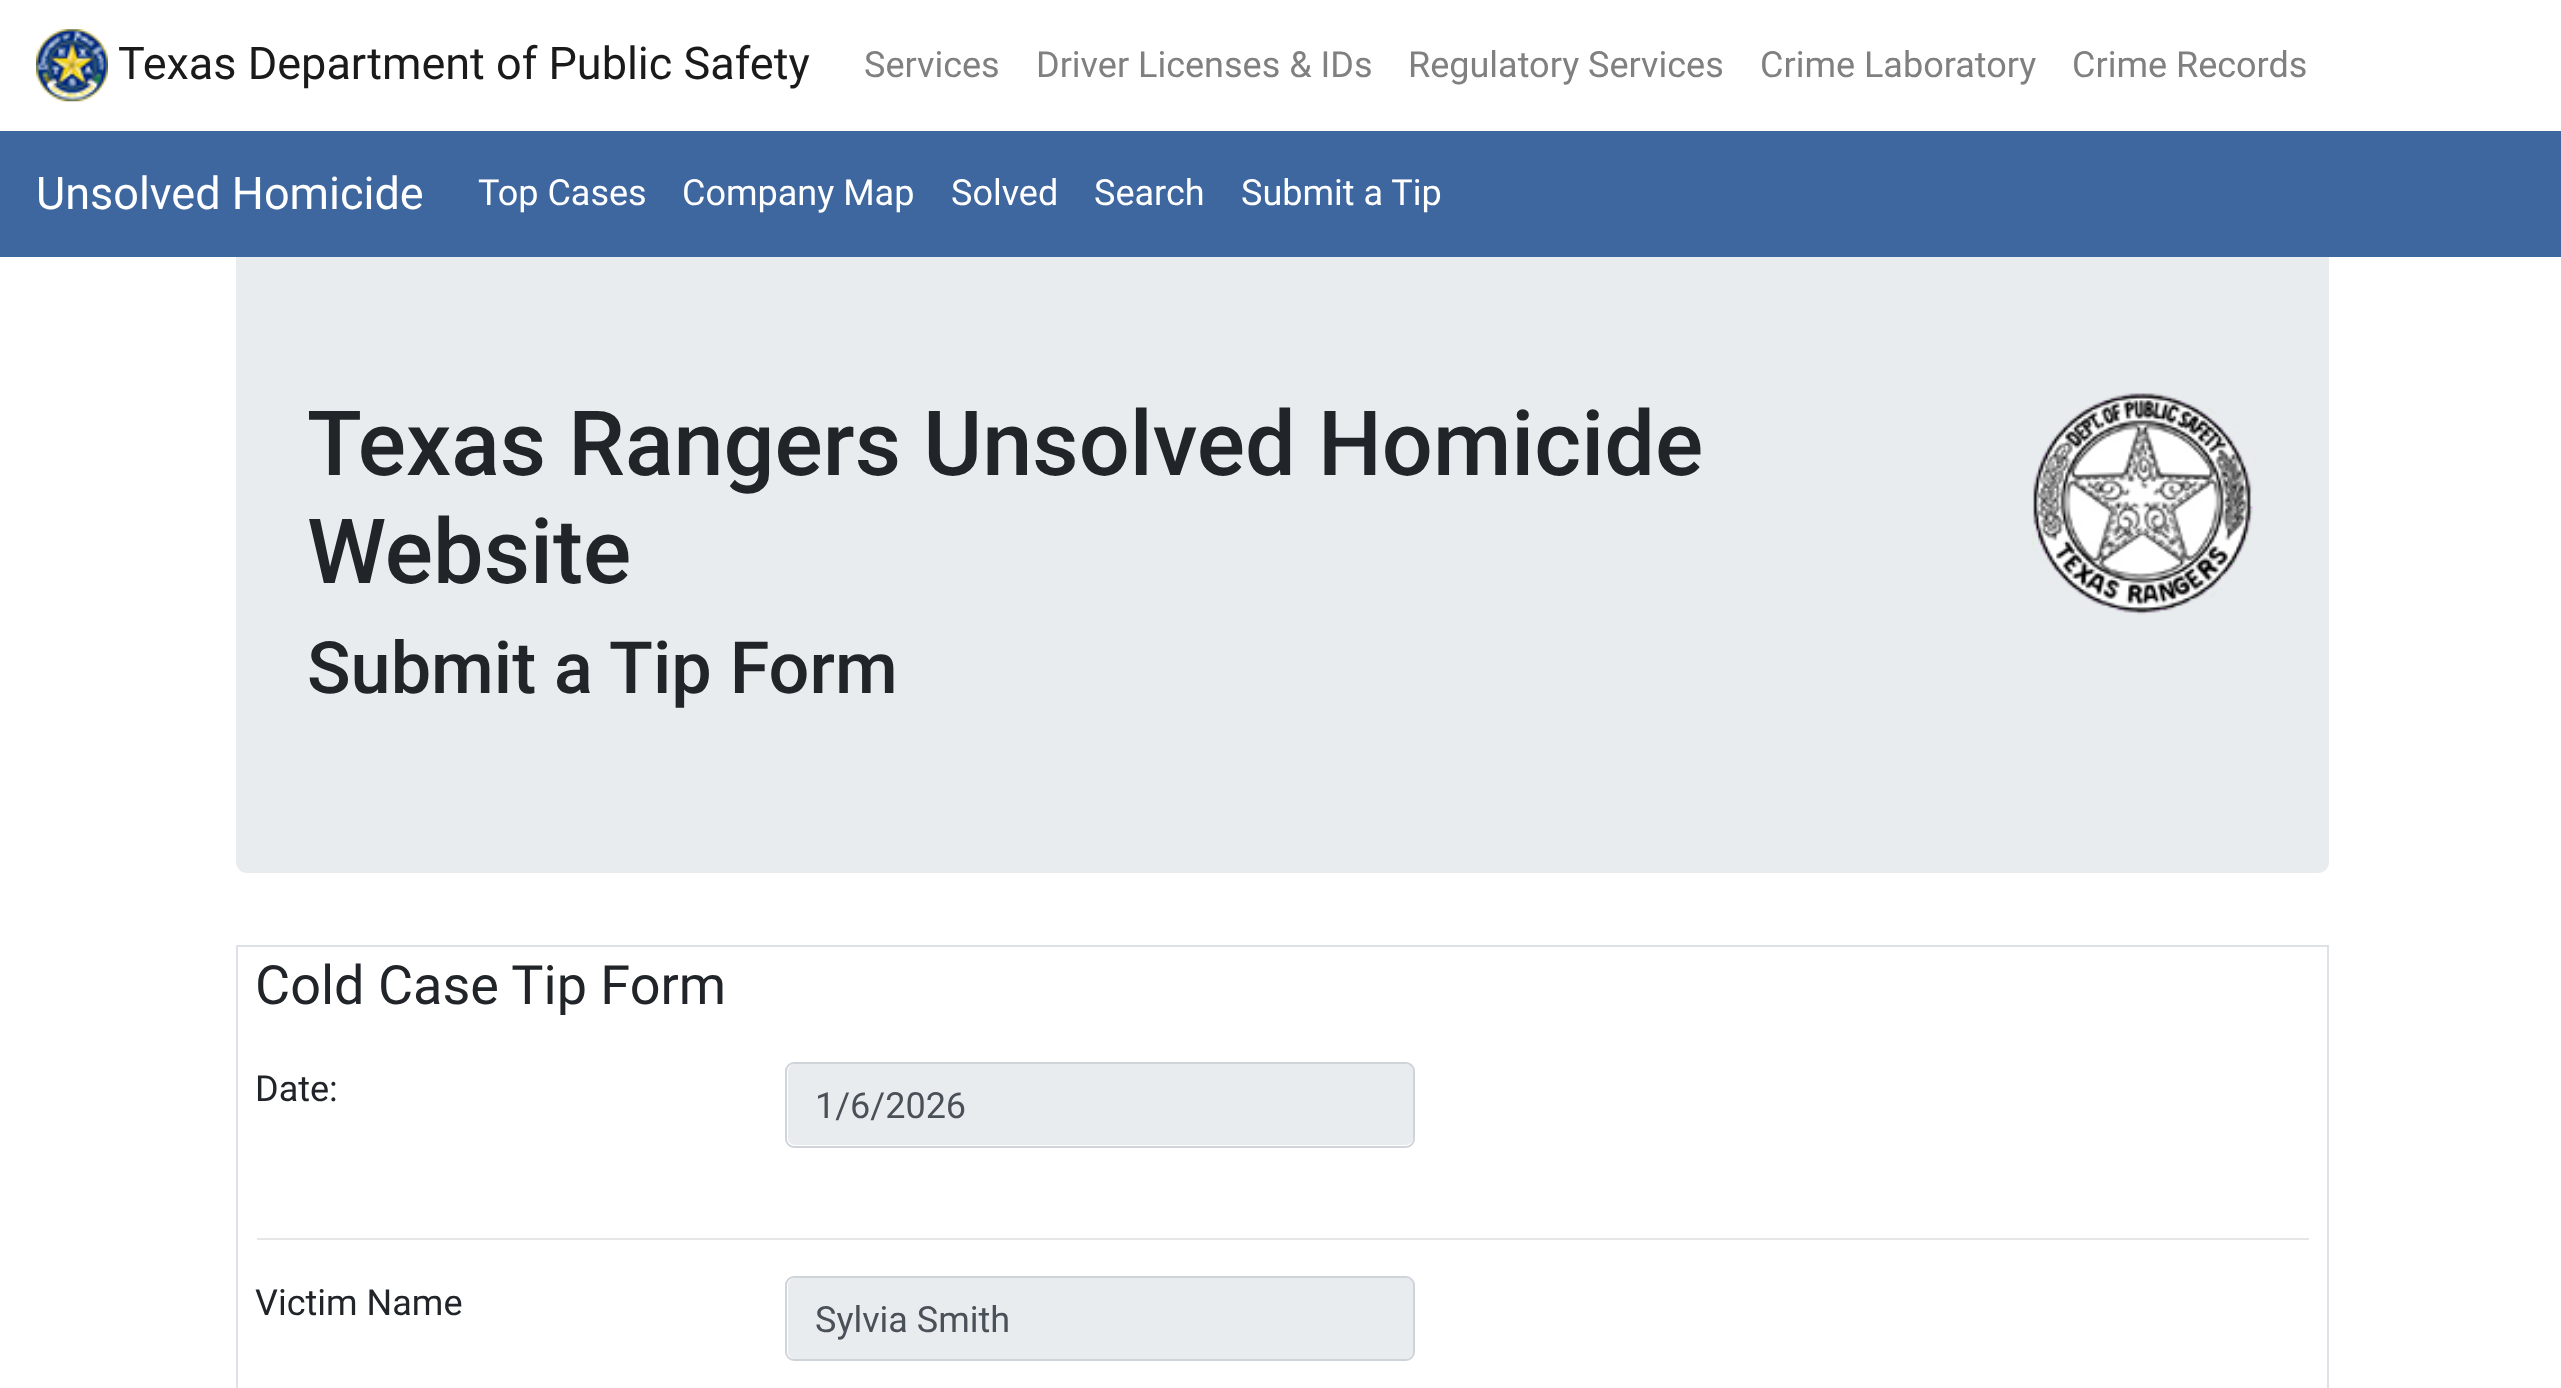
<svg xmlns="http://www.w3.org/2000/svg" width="2561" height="1388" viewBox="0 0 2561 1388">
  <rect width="100%" height="100%" fill="#fff"/>
  <image x="36" y="29" width="72" height="73" href="img/1.png"/>
  <rect x="236" y="248" width="2093" height="625" rx="11" fill="#e9ecef"/>
  <path d="M0 131h2561v126H0z" fill="#3e679f"/>
  <image x="2032" y="392" width="225" height="223" href="img/2.png"/>
  <path d="M237 946h2091v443H237z" fill="none" stroke="#dee2e6" stroke-width="2"/>
  <rect x="788" y="1064" width="625" height="81" rx="7" fill="#e9ecef"/>
  <rect x="786" y="1063" width="628" height="84" rx="8" fill="none" stroke="#ced4da" stroke-width="2"/>
  <path d="M257 1238h2052v2H257z" fill="#e6e6e6"/>
  <rect x="788" y="1278" width="625" height="81" rx="7" fill="#e9ecef"/>
  <rect x="786" y="1277" width="628" height="83" rx="8" fill="none" stroke="#ced4da" stroke-width="2"/>
  <text x="118" y="79" font-family="Roboto" font-size="45" fill="#1a1a1a">Texas Department of Public Safety</text>
  <g font-family="Roboto" font-size="36" fill="#808080">
    <text x="864" y="77">Services</text>
    <text x="1036" y="77">Driver Licenses &amp; IDs</text>
    <text x="1408" y="77">Regulatory Services</text>
    <text x="1760" y="77">Crime Laboratory</text>
    <text x="2072" y="77">Crime Records</text>
  </g>
  <text x="36" y="209" font-family="Roboto" font-size="45" fill="#fff">Unsolved Homicide</text>
  <g font-family="Roboto" font-size="36" fill="#fff">
    <text x="478" y="205">Top Cases</text>
    <text x="682" y="205">Company Map</text>
    <text x="951" y="205">Solved</text>
    <text x="1094" y="205">Search</text>
    <text x="1241" y="205">Submit a Tip</text>
  </g>
  <g font-family="Roboto" font-size="90" font-weight="500" fill="#212529">
    <text x="307" y="475">Texas Rangers Unsolved Homicide</text>
    <text x="307" y="583">Website</text>
  </g>
  <text x="307" y="693" font-family="Roboto" font-size="72" font-weight="500" fill="#212529">Submit a Tip Form</text>
  <text x="255" y="1004" font-family="Roboto" font-size="54" fill="#212529">Cold Case Tip Form</text>
  <text x="255" y="1101" font-family="Roboto" font-size="36" fill="#212529">Date:</text>
  <text x="815" y="1118" font-family="Roboto" font-size="36" fill="#495057">1/6/2026</text>
  <text x="255" y="1315" font-family="Roboto" font-size="36" fill="#212529">Victim Name</text>
  <text x="815" y="1332" font-family="Roboto" font-size="36" fill="#495057">Sylvia Smith</text>
</svg>
